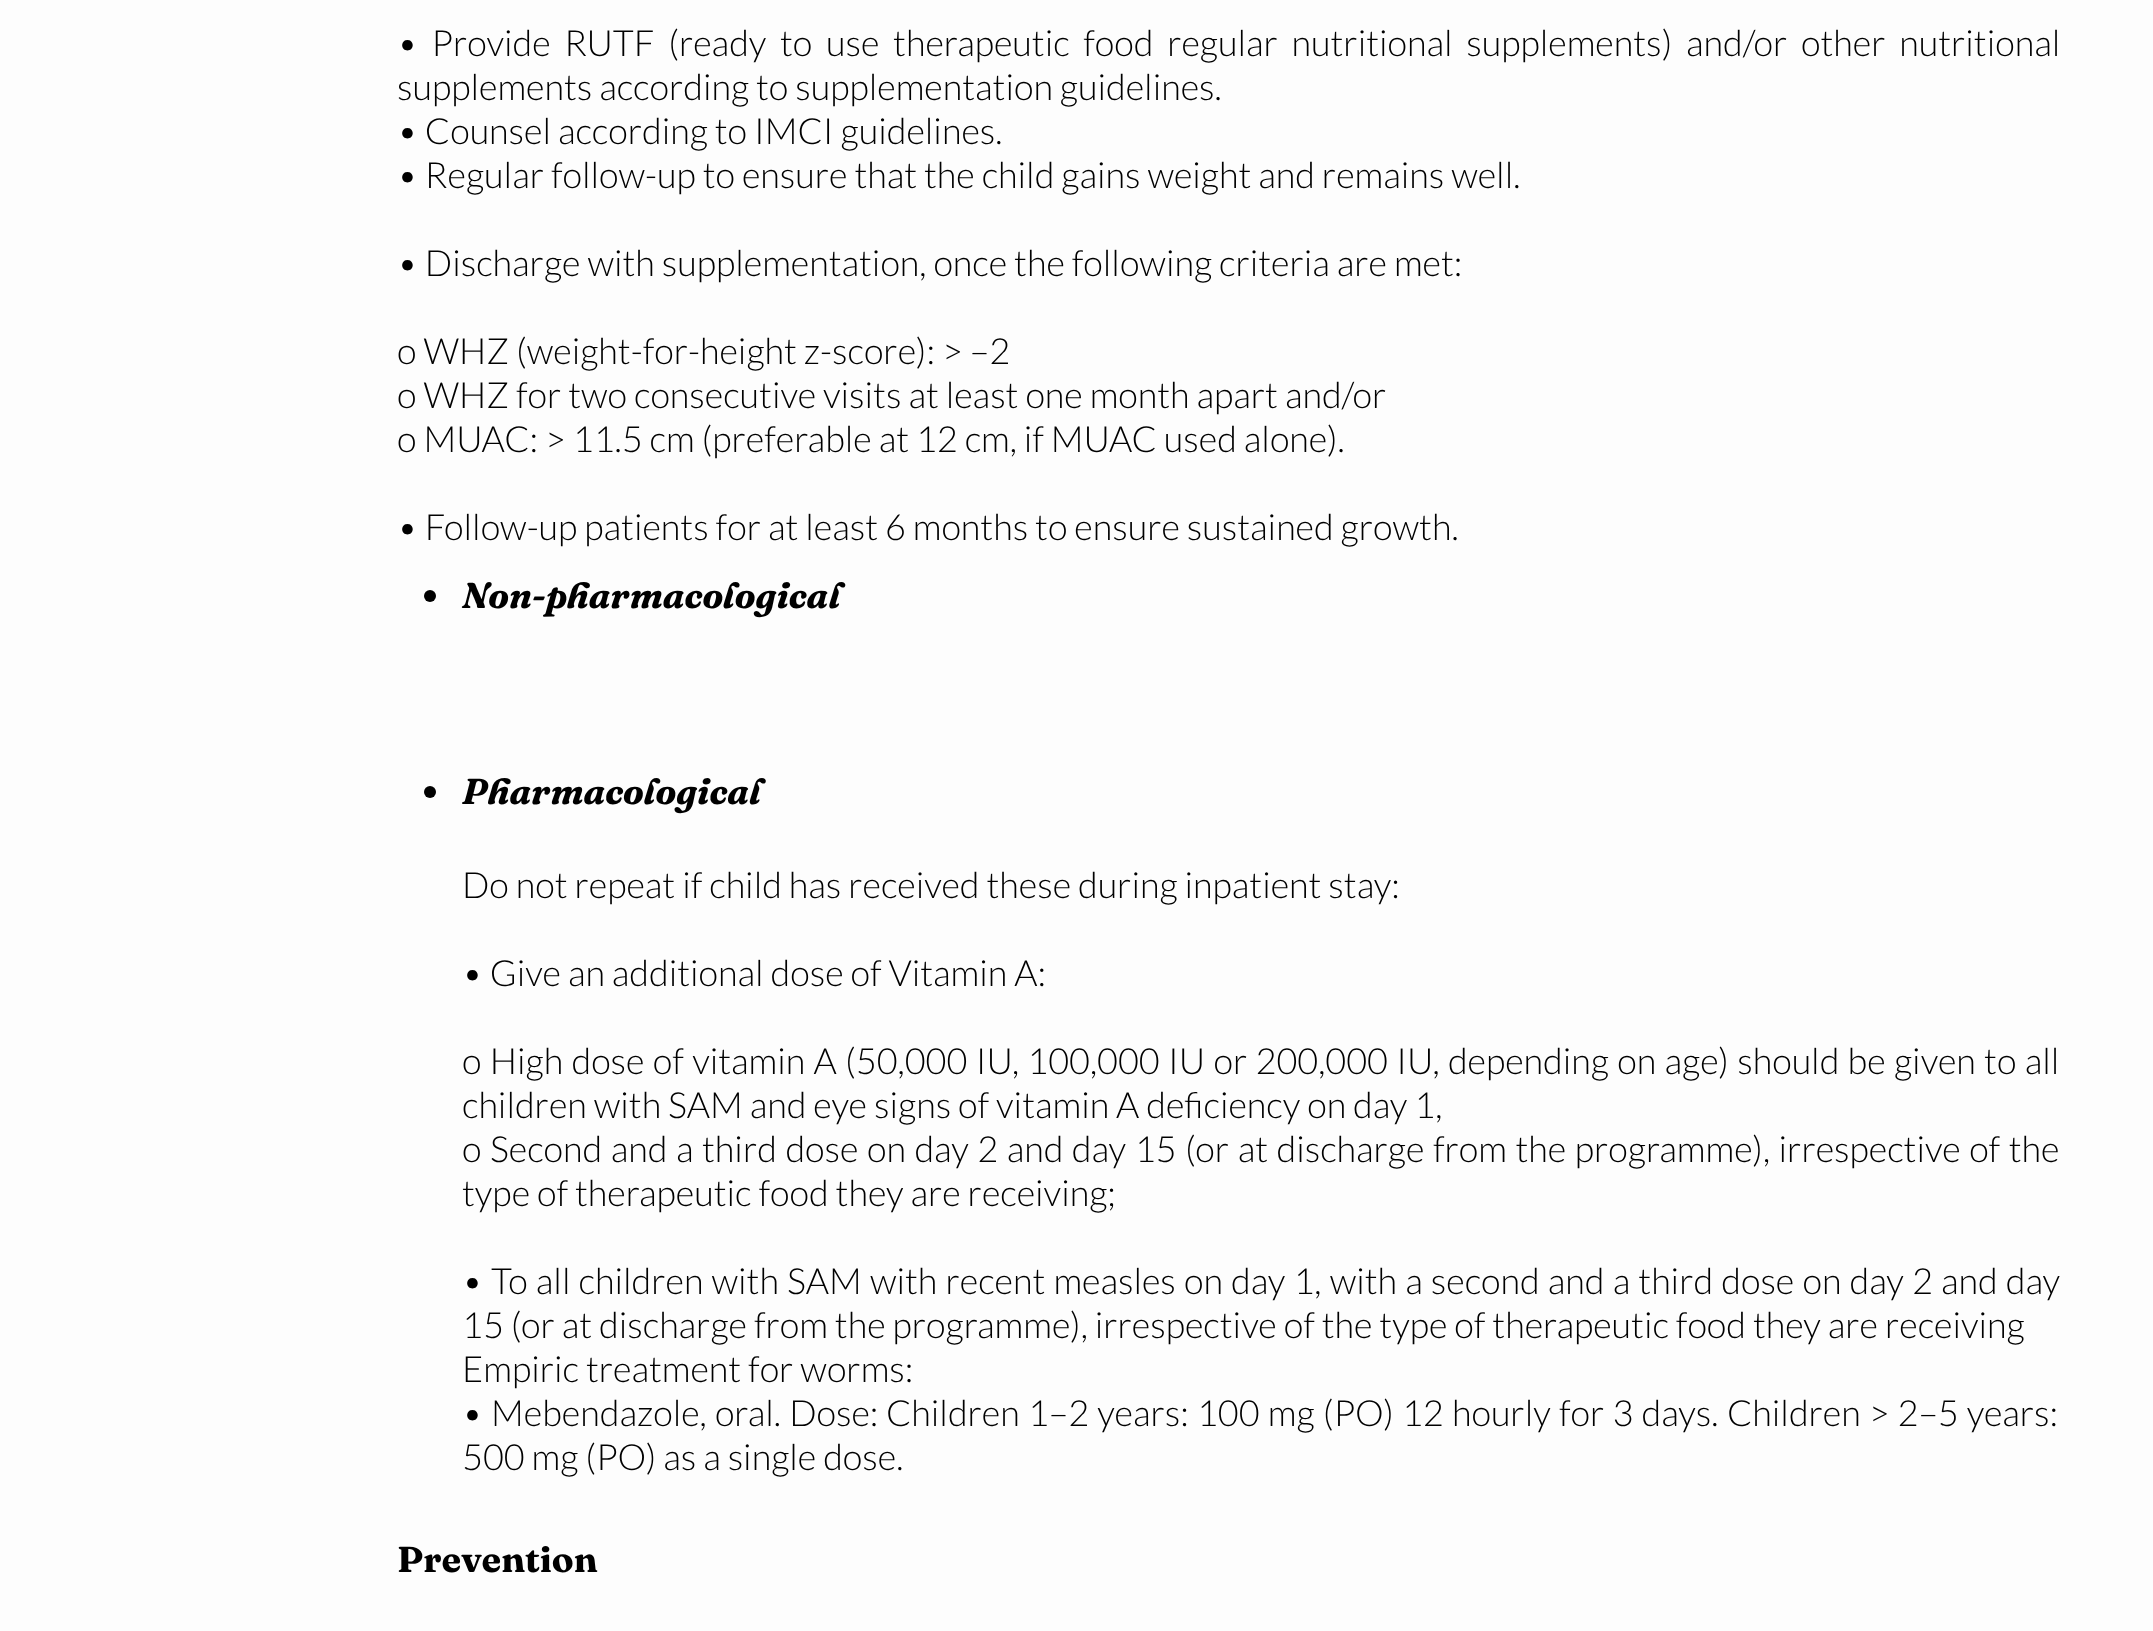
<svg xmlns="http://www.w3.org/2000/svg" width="2153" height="1631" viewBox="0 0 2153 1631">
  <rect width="100%" height="100%" fill="#fdfdfd"/>
  <circle cx="430" cy="596" r="6" fill="#000"/>
  <circle cx="430" cy="792" r="6" fill="#000"/>
  <g font-family="Lato" font-size="36" font-weight="300" fill="#000">
    <text x="397" y="56" word-spacing="6.75">• Provide RUTF (ready to use therapeutic food regular nutritional supplements) and/or other nutritional</text>
    <text x="397" y="100">supplements according to supplementation guidelines.</text>
    <text x="397" y="144">• Counsel according to IMCI guidelines.</text>
    <text x="397" y="188">• Regular follow-up to ensure that the child gains weight and remains well.</text>
    <text x="397" y="276">• Discharge with supplementation, once the following criteria are met:</text>
    <text x="397" y="364">o WHZ (weight-for-height z-score): &gt; –2</text>
    <text x="397" y="408">o WHZ for two consecutive visits at least one month apart and/or</text>
    <text x="397" y="452">o MUAC: &gt; 11.5 cm (preferable at 12 cm, if MUAC used alone).</text>
    <text x="397" y="540">• Follow-up patients for at least 6 months to ensure sustained growth.</text>
  </g>
  <g font-family="Fraunces" font-size="36" font-weight="bold" font-style="italic" fill="#000">
    <text x="462" y="608">Non-pharmacological</text>
    <text x="462" y="804">Pharmacological</text>
  </g>
  <g font-family="Lato" font-size="36" font-weight="300" fill="#000">
    <text x="462" y="898">Do not repeat if child has received these during inpatient stay:</text>
    <text x="462" y="986">• Give an additional dose of Vitamin A:</text>
    <text x="462" y="1074" word-spacing="1.35">o High dose of vitamin A (50,000 IU, 100,000 IU or 200,000 IU, depending on age) should be given to all</text>
    <text x="462" y="1118">children with SAM and eye signs of vitamin A deficiency on day 1,</text>
    <text x="462" y="1162" word-spacing="1.6">o Second and a third dose on day 2 and day 15 (or at discharge from the programme), irrespective of the</text>
    <text x="462" y="1206">type of therapeutic food they are receiving;</text>
    <text x="462" y="1294" word-spacing="1.2">• To all children with SAM with recent measles on day 1, with a second and a third dose on day 2 and day</text>
    <text x="462" y="1338">15 (or at discharge from the programme), irrespective of the type of therapeutic food they are receiving</text>
    <text x="462" y="1382">Empiric treatment for worms:</text>
    <text x="462" y="1426" word-spacing="1.25">• Mebendazole, oral. Dose:</text>
    <text x="886" y="1426" word-spacing="1.25">Children 1–2 years: 100 mg (PO) 12 hourly for 3 days.</text>
    <text x="1727" y="1426" word-spacing="1">Children &gt; 2–5 years:</text>
    <text x="462" y="1470">500 mg (PO) as a single dose.</text>
  </g>
  <text x="397" y="1572" font-family="Fraunces" font-size="36" font-weight="bold" fill="#000">Prevention</text>
</svg>
